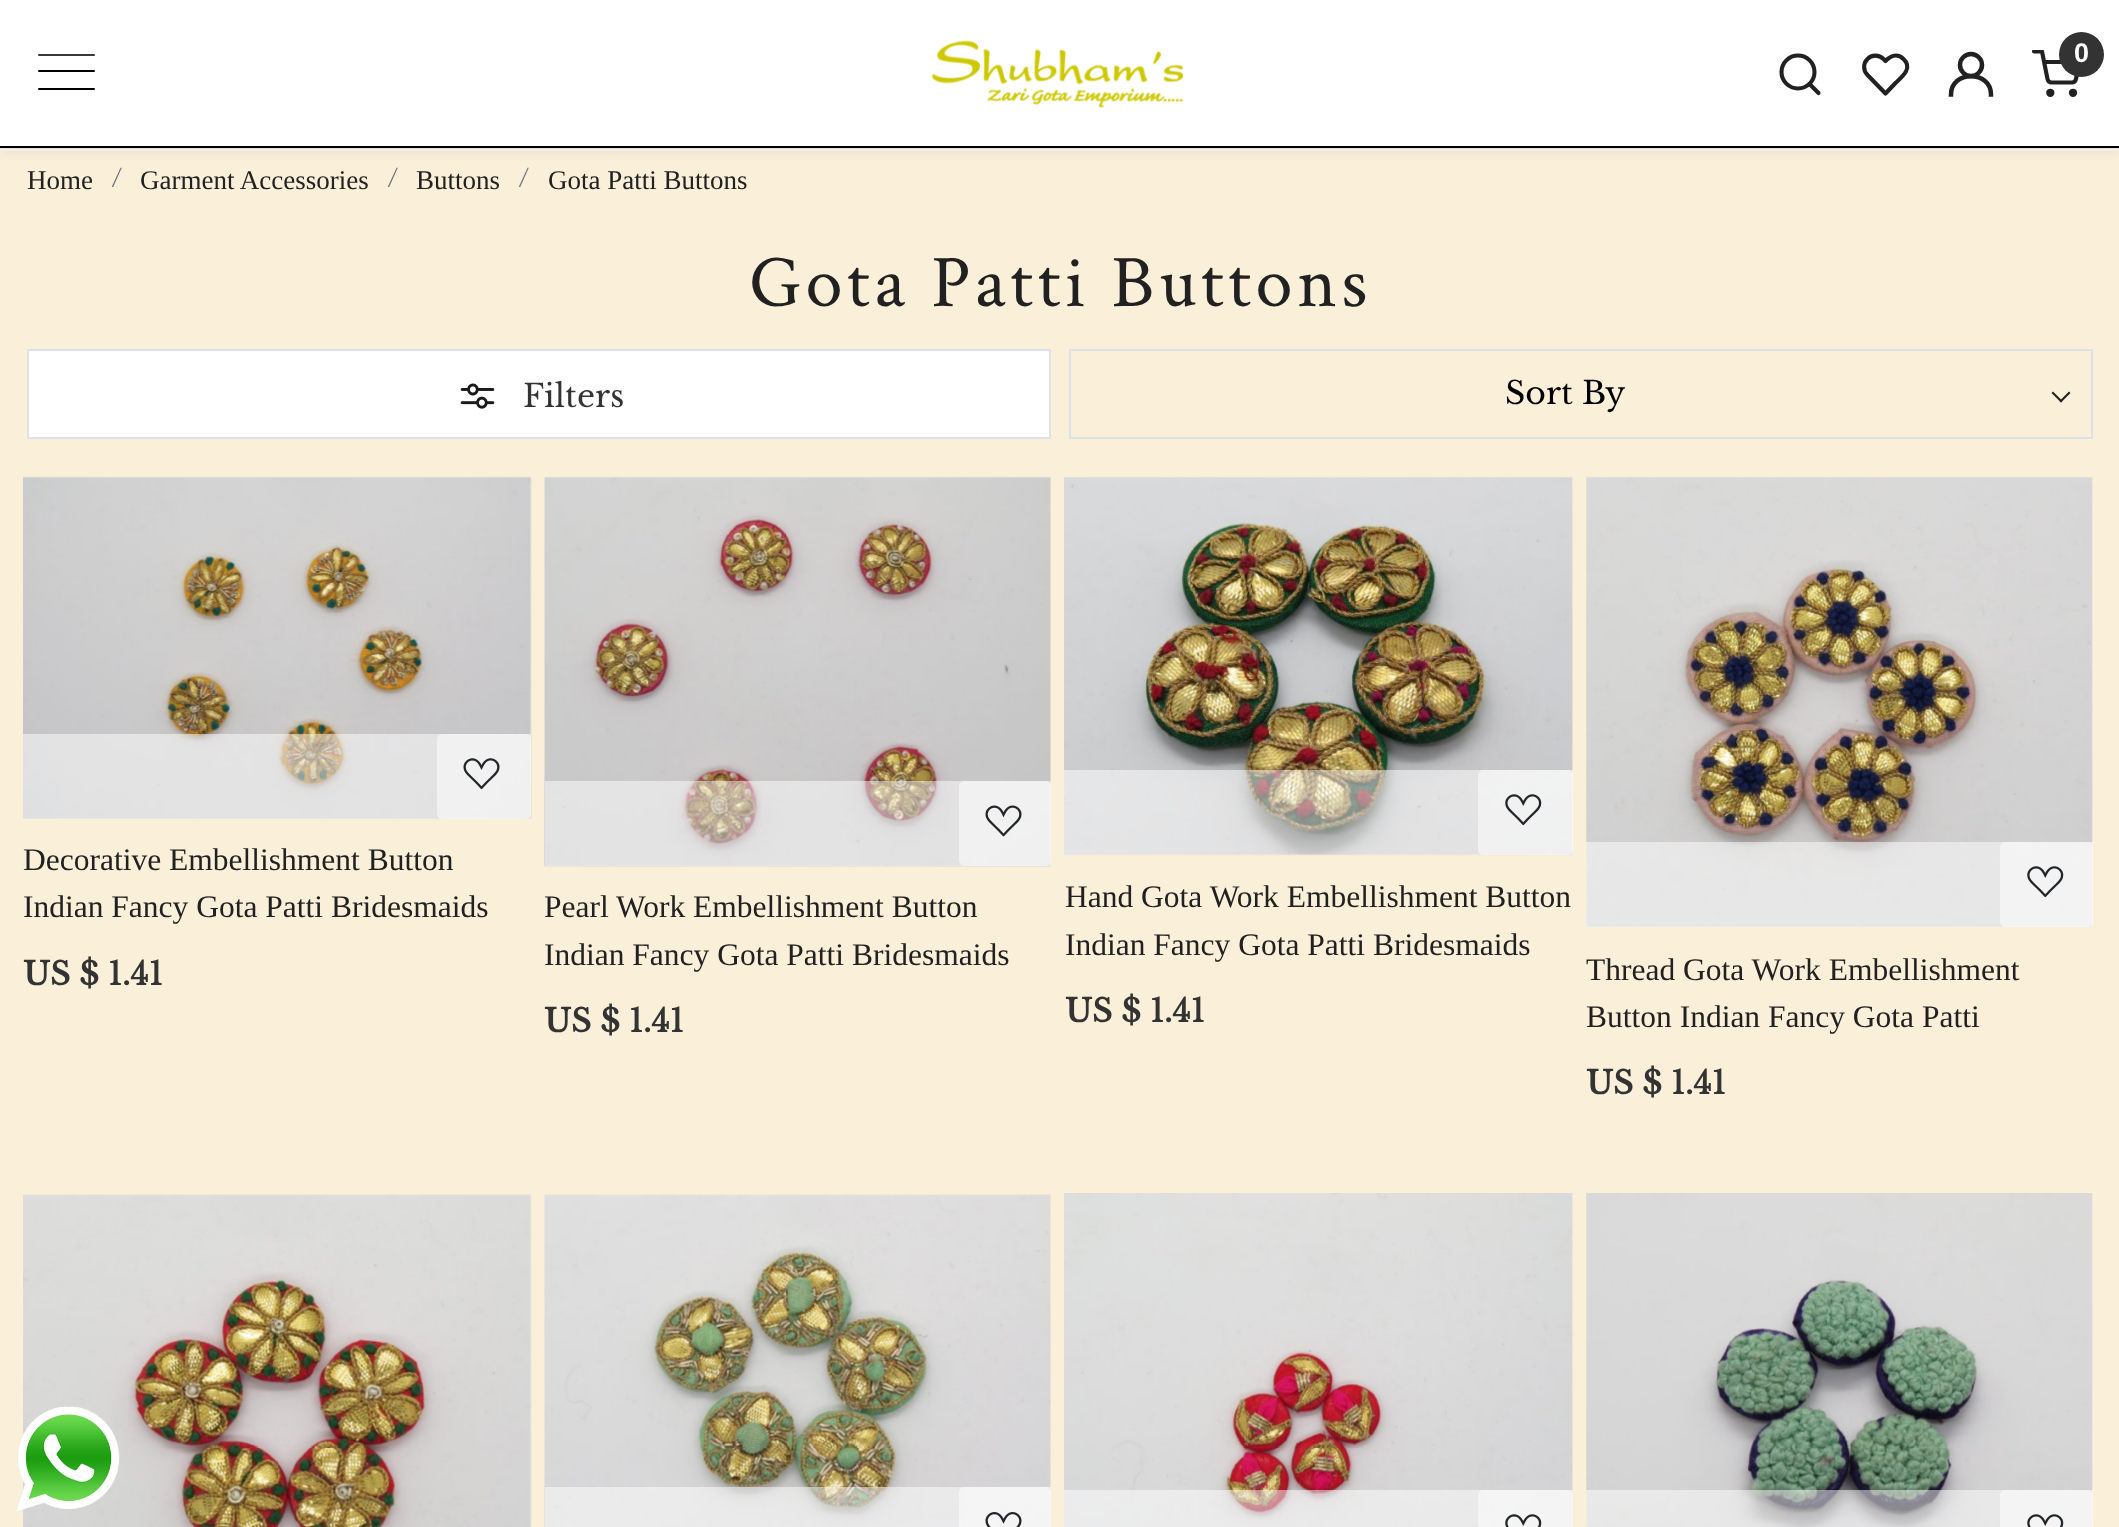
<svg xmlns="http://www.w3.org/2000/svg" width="2119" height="1527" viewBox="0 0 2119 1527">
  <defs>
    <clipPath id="clip1"><path d="M2032 50h49v49H2032z"/></clipPath>
  </defs>
  <rect width="100%" height="100%" fill="#faefd9"/>
  <path d="M0 0h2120v151H0z" fill="#05050a14" filter="blur(5.5px)"/>
  <path d="M0 149h2119v2H0z" fill="#eee"/>
  <path d="M0 0h2119v146H0z" fill="#fff"/>
  <rect x="38" y="88" width="57" height="2" rx="1" fill="#000"/>
  <rect x="38" y="70" width="57" height="2" rx="1" fill="#000"/>
  <rect x="38" y="54" width="57" height="2" rx="1" fill="#343a40"/>
  <image x="931" y="40" width="253" height="68" href="img/1.png"/>
  <circle cx="1798" cy="72" r="16.5" fill="none" stroke="#212121" stroke-width="4.1"/>
  <path d="M1818.5 93L1809.5 84" fill="none" stroke="#212121" stroke-width="4.1" stroke-linecap="round" stroke-linejoin="round"/>
  <path d="M1903.5 59C1897.5 53 1890.5 56 1885.5 61L1883.5 59C1879 54.5 1871.5 54.5 1867.5 59C1863 63.5 1863 70.5 1867.5 75L1885.5 93.5L1896 82.5C1902.5 76.5 1913 68 1903.5 59Z" fill="none" stroke="#212121" stroke-width="4.1" stroke-linecap="round" stroke-linejoin="round"/>
  <path d="M1951 94.5C1951 70 1991 70 1991 94.5" fill="none" stroke="#212121" stroke-width="4.5" stroke-linecap="square"/>
  <circle cx="1971" cy="65" r="11" fill="none" stroke="#212121" stroke-width="4.5"/>
  <g clip-path="url(#clip1)">
    <path d="M2034 51.5H2042L2047.5 79C2048 81 2049.5 82.5 2051.5 82.5H2072C2074 82.5 2075.5 81 2076 79L2079 62H2044" fill="none" stroke="#212121" stroke-width="4.1" stroke-linecap="round" stroke-linejoin="round"/>
  </g>
  <circle cx="2081.5" cy="54.5" r="22.5" fill="#333"/>
  <circle cx="2050.3" cy="92.8" r="2.1" fill="none" stroke="#212121" stroke-width="4.1"/>
  <circle cx="2073" cy="92.8" r="2.1" fill="none" stroke="#212121" stroke-width="4.1"/>
  <path d="M0 146h2119v2H0z" fill="#000"/>
  <path d="M28 350h1022v88H28z" fill="#fff" stroke="#dee2e6" stroke-width="2"/>
  <image x="460" y="383" width="35" height="26" href="img/2.png"/>
  <path d="M1070 350h1022v88H1070z" fill="none" stroke="#dee2e6" stroke-width="2"/>
  <path d="M2069 391.5L2070.5 393L2061 402.5L2059.5 401Z" fill="#222"/>
  <path d="M2053 391.5L2062.5 401L2061 402.5L2051.5 393Z" fill="#222"/>
  <image x="23" y="476" width="509" height="343" href="img/3.png"/>
  <path d="M23 734h508v85H23z" fill="#ffffff80"/>
  <rect x="437" y="734" width="94" height="85" rx="5" fill="#ffffff80"/>
  <image x="463" y="758" width="37" height="32" href="img/4.png"/>
  <image x="544" y="476" width="507" height="391" href="img/5.png"/>
  <path d="M545 781h506v85H545z" fill="#ffffff80"/>
  <rect x="959" y="781" width="92" height="85" rx="5" fill="#ffffff80"/>
  <image x="985" y="805" width="37" height="32" href="img/6.png"/>
  <image x="1064" y="476" width="509" height="380" href="img/7.png"/>
  <path d="M1064 770h509v85H1064z" fill="#ffffff80"/>
  <rect x="1478" y="770" width="95" height="85" rx="5" fill="#ffffff80"/>
  <image x="1505" y="794" width="37" height="32" href="img/8.png"/>
  <image x="1586" y="476" width="507" height="451" href="img/9.png"/>
  <path d="M1586 842h507v85H1586z" fill="#ffffff80"/>
  <rect x="2000" y="842" width="93" height="85" rx="5" fill="#ffffff80"/>
  <image x="2027" y="866" width="37" height="32" href="img/10.png"/>
  <image x="23" y="1194" width="509" height="333" href="img/11.png"/>
  <image x="544" y="1194" width="507" height="333" href="img/12.png"/>
  <path d="M545 1487h506v40H545z" fill="#ffffff80"/>
  <rect x="959" y="1487" width="92" height="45" rx="5" fill="#ffffff80"/>
  <image x="985" y="1512" width="37" height="15" href="img/13.png"/>
  <image x="1064" y="1193" width="509" height="334" href="img/14.png"/>
  <path d="M1064 1490h509v37H1064z" fill="#ffffff80"/>
  <rect x="1478" y="1490" width="95" height="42" rx="5" fill="#ffffff80"/>
  <image x="1505" y="1514" width="37" height="13" href="img/15.png"/>
  <image x="1586" y="1193" width="507" height="334" href="img/16.png"/>
  <path d="M1586 1490h507v37H1586z" fill="#ffffff80"/>
  <rect x="2000" y="1490" width="93" height="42" rx="5" fill="#ffffff80"/>
  <image x="2027" y="1514" width="37" height="13" href="img/17.png"/>
  <image x="15" y="1406" width="105" height="107" href="img/18.png"/>
  <text x="2074" y="62" font-family="Liberation Sans" font-size="27" font-weight="bold" fill="#fff">0</text>
  <text x="27" y="189" font-family="Liberation Serif" font-size="27" fill="#212121">Home</text>
  <text x="111" y="187" font-family="Libre Baskerville" font-size="25" fill="#6c757d">/</text>
  <text x="140" y="189" font-family="Liberation Serif" font-size="27" fill="#212121">Garment Accessories</text>
  <text x="387" y="187" font-family="Libre Baskerville" font-size="25" fill="#6c757d">/</text>
  <text x="416" y="189" font-family="Liberation Serif" font-size="27" fill="#212121">Buttons</text>
  <text x="518" y="187" font-family="Libre Baskerville" font-size="25" fill="#6c757d">/</text>
  <text x="548" y="189" font-family="Liberation Serif" font-size="27" fill="#212121">Gota Patti Buttons</text>
  <text x="749" y="306" font-family="Crimson Text" font-size="74.5" letter-spacing="4.5" fill="#212121">Gota Patti Buttons</text>
  <text x="523" y="407" font-family="Libre Baskerville" font-size="31.5" fill="#333">Filters</text>
  <text x="1505" y="404" font-family="Libre Baskerville" font-size="31.5" fill="#000">Sort By</text>
  <g font-family="Liberation Serif" font-size="31.5" fill="#212121">
    <text x="23" y="870">Decorative Embellishment Button</text>
    <text x="23" y="917">Indian Fancy Gota Patti Bridesmaids</text>
  </g>
  <text x="23" y="985" font-family="Libre Baskerville" font-size="31.5" font-weight="bold" fill="#333">US $ 1.41</text>
  <g font-family="Liberation Serif" font-size="31.5" fill="#212121">
    <text x="544" y="917">Pearl Work Embellishment Button</text>
    <text x="544" y="965">Indian Fancy Gota Patti Bridesmaids</text>
  </g>
  <text x="544" y="1032" font-family="Libre Baskerville" font-size="31.5" font-weight="bold" fill="#333">US $ 1.41</text>
  <g font-family="Liberation Serif" font-size="31.5" fill="#212121">
    <text x="1065" y="907">Hand Gota Work Embellishment Button</text>
    <text x="1065" y="955">Indian Fancy Gota Patti Bridesmaids</text>
  </g>
  <text x="1065" y="1022" font-family="Libre Baskerville" font-size="31.5" font-weight="bold" fill="#333">US $ 1.41</text>
  <g font-family="Liberation Serif" font-size="31.5" fill="#212121">
    <text x="1586" y="980">Thread Gota Work Embellishment</text>
    <text x="1586" y="1027">Button Indian Fancy Gota Patti</text>
  </g>
  <text x="1586" y="1094" font-family="Libre Baskerville" font-size="31.5" font-weight="bold" fill="#333">US $ 1.41</text>
</svg>
